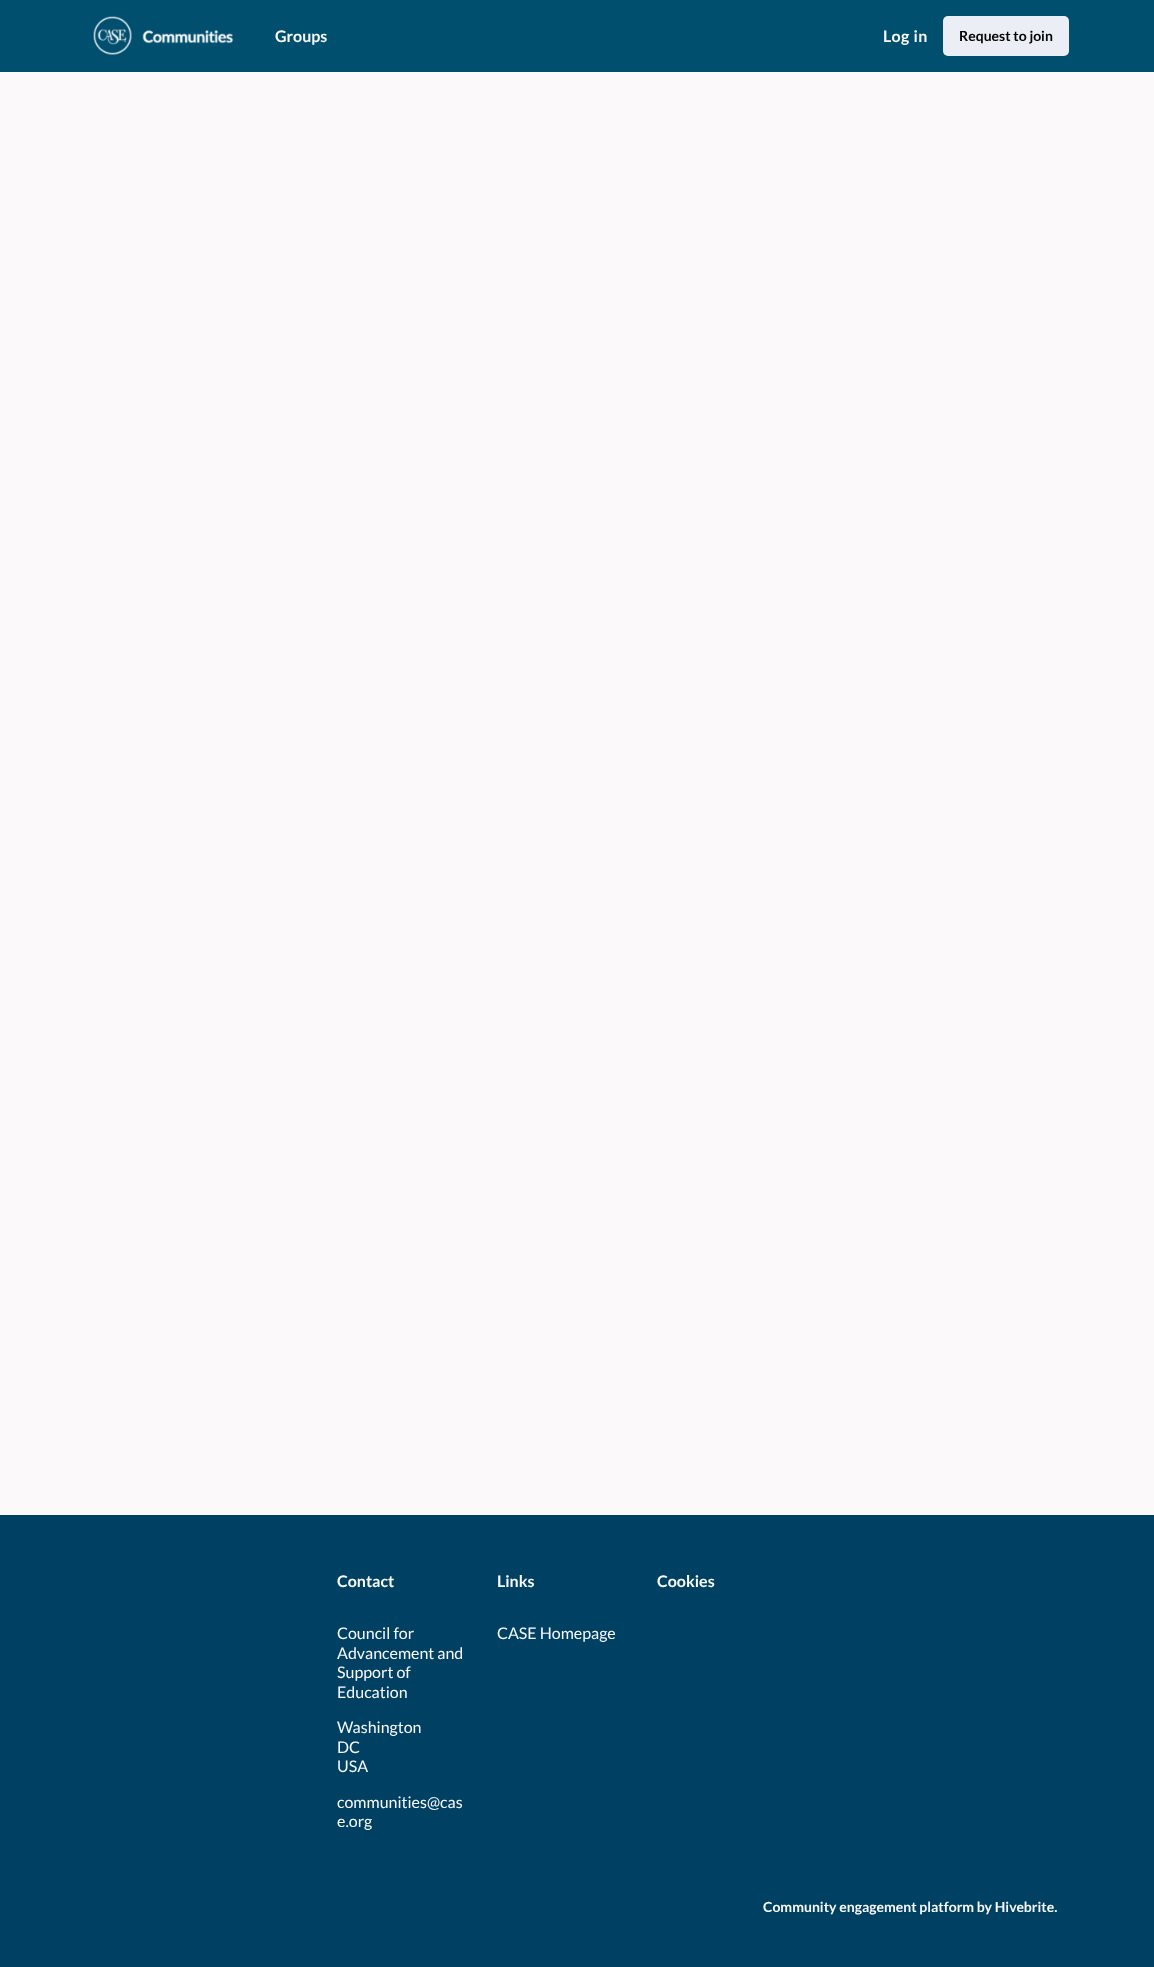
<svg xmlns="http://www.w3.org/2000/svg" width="1154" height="1967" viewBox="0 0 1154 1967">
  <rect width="100%" height="100%" fill="#fbf9f9"/>
  <path d="M0 0h1154v72H0z" fill="#004f6e"/>
  <image x="93" y="16" width="141" height="39" href="img/1.png"/>
  <rect x="943" y="16" width="126" height="40" rx="5" fill="#ebeef4"/>
  <path d="M0 1515h1154v452H0z" fill="#004062"/>
  <text x="275" y="42" font-family="Lato" font-size="16" font-weight="bold" fill="#fafafa">Groups</text>
  <text x="883" y="42" font-family="Lato" font-size="16" font-weight="bold" letter-spacing="0.5" fill="#fafafa">Log in</text>
  <text x="959" y="41" font-family="Lato" font-size="14" font-weight="bold" fill="#050505">Request to join</text>
  <text x="337" y="1587" font-family="Lato" font-size="16" font-weight="bold" fill="#fafafa">Contact</text>
  <g font-family="Lato" font-size="16" fill="#fafafa">
    <text x="337" y="1639">Council for</text>
    <text x="337" y="1659">Advancement and</text>
    <text x="337" y="1678">Support of</text>
    <text x="337" y="1698">Education</text>
    <text x="337" y="1733">Washington</text>
    <text x="337" y="1753">DC</text>
    <text x="337" y="1772">USA</text>
    <text x="337" y="1808">communities@cas</text>
    <text x="337" y="1827">e.org</text>
  </g>
  <text x="497" y="1587" font-family="Lato" font-size="16" font-weight="bold" fill="#fafafa">Links</text>
  <text x="497" y="1639" font-family="Lato" font-size="16" fill="#fafafa">CASE Homepage</text>
  <text x="657" y="1587" font-family="Lato" font-size="16" font-weight="bold" fill="#fafafa">Cookies</text>
  <text x="763" y="1912" font-family="Lato" font-size="14" font-weight="bold" fill="#fafafa">Community engagement platform by Hivebrite.</text>
</svg>
